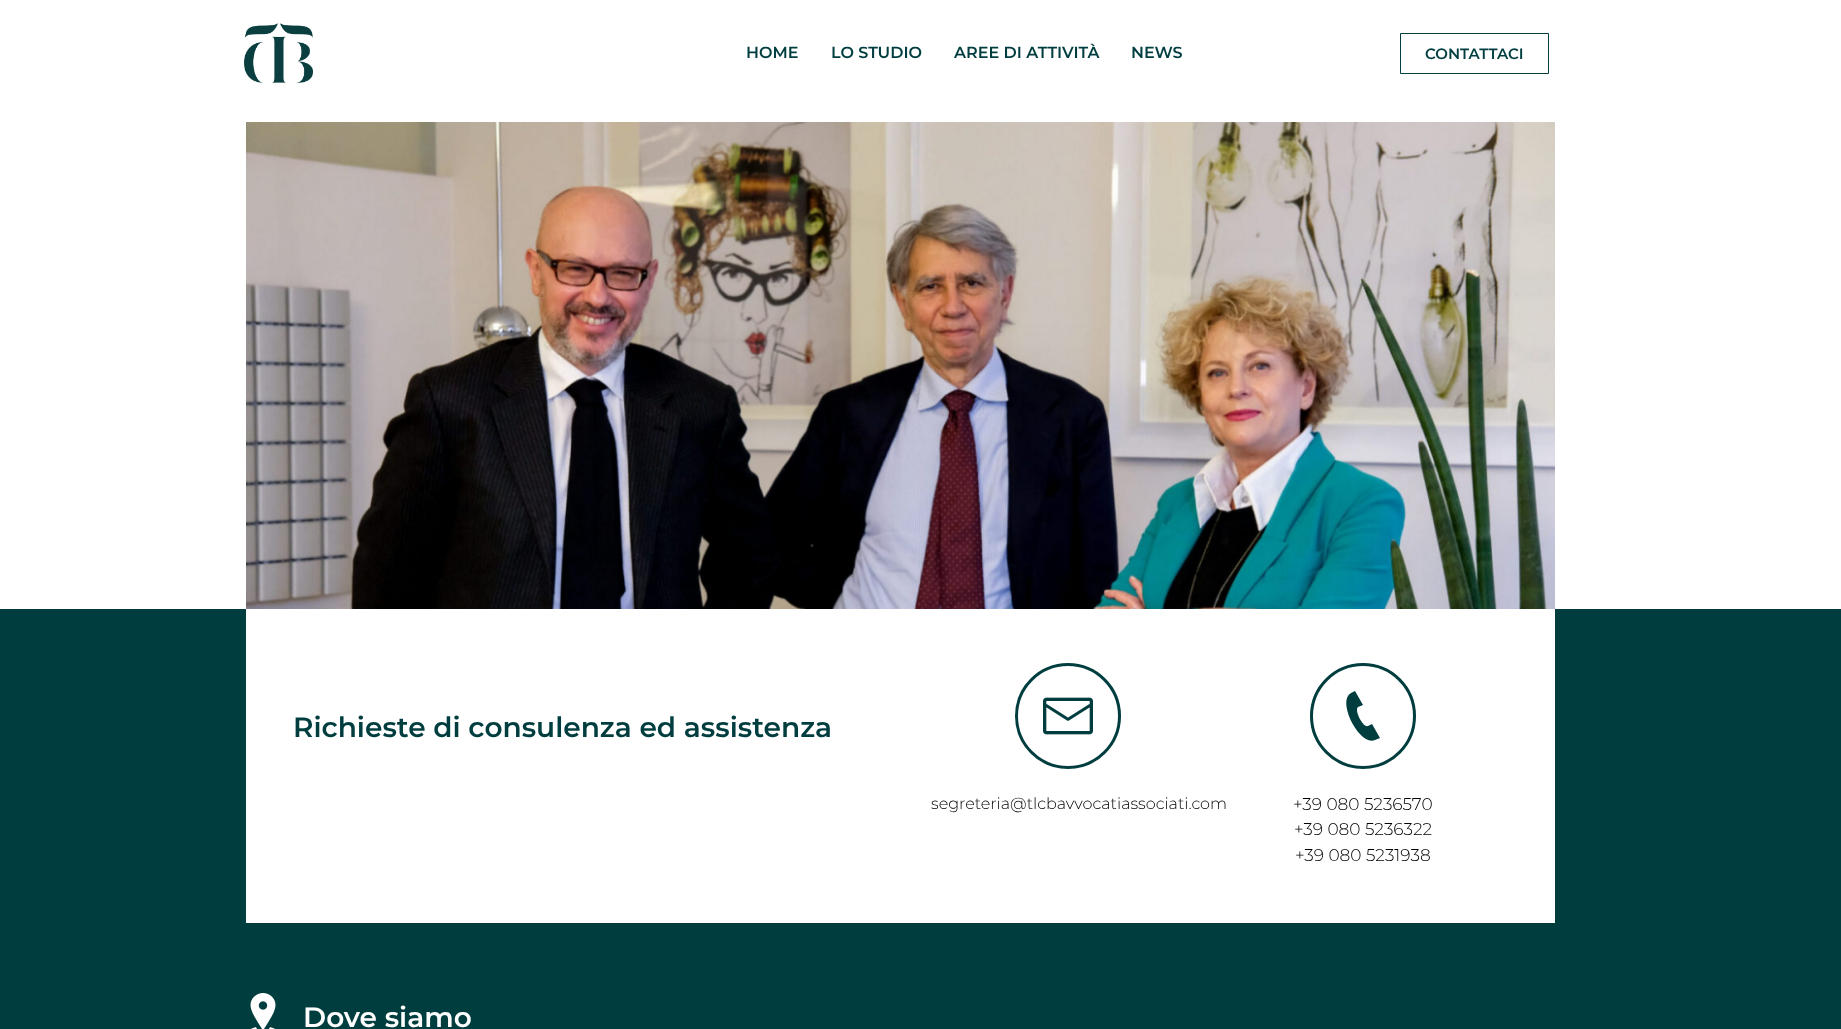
<svg xmlns="http://www.w3.org/2000/svg" width="1841" height="1029" viewBox="0 0 1841 1029">
  <rect width="100%" height="100%" fill="#fff"/>
  <image x="244" y="23" width="69" height="60" href="img/1.png"/>
  <path d="M1400.5 33.5h148v40H1400.5z" fill="none" stroke="#003d3f"/>
  <image x="246" y="122" width="1309" height="487" href="img/2.png"/>
  <path d="M0 609h1841v420H0z" fill="#003d3f"/>
  <path d="M246 609h1309v314H246z" fill="#fff"/>
  <circle cx="1068" cy="716" r="51.5" fill="none" stroke="#003d3f" stroke-width="3"/>
  <image x="1043" y="697" width="50" height="38" href="img/3.png"/>
  <circle cx="1363" cy="716" r="51.5" fill="none" stroke="#003d3f" stroke-width="3"/>
  <path d="M1380 738L1372 724L1368 726C1363 728 1354 710 1358 707L1363 705L1355 691L1351 693C1336 701 1360 747 1375 740Z" fill="#003d3f"/>
  <image x="250" y="993" width="26" height="36" href="img/4.png"/>
  <g font-family="Montserrat" font-size="16" font-weight="600" fill="#003d3f">
    <text x="746" y="58">HOME</text>
    <text x="831" y="58">LO STUDIO</text>
    <text x="954" y="58">AREE DI ATTIVITÀ</text>
    <text x="1131" y="58">NEWS</text>
  </g>
  <text x="1425" y="59" font-family="Montserrat" font-size="15" font-weight="600" fill="#003d3f">CONTATTACI</text>
  <text x="293" y="737" font-family="Montserrat" font-size="28" font-weight="600" fill="#003d3f">Richieste di consulenza ed assistenza</text>
  <text x="931" y="809" font-family="Montserrat" font-size="16" font-weight="300" fill="#000">segreteria@tlcbavvocatiassociati.com</text>
  <g font-family="Montserrat" font-size="17" font-weight="300" fill="#000">
    <text x="1293" y="810">+39 080 5236570</text>
    <text x="1294" y="835">+39 080 5236322</text>
    <text x="1295" y="861">+39 080 5231938</text>
  </g>
  <text x="303" y="1027" font-family="Montserrat" font-size="28" font-weight="600" fill="#fff">Dove siamo</text>
</svg>
